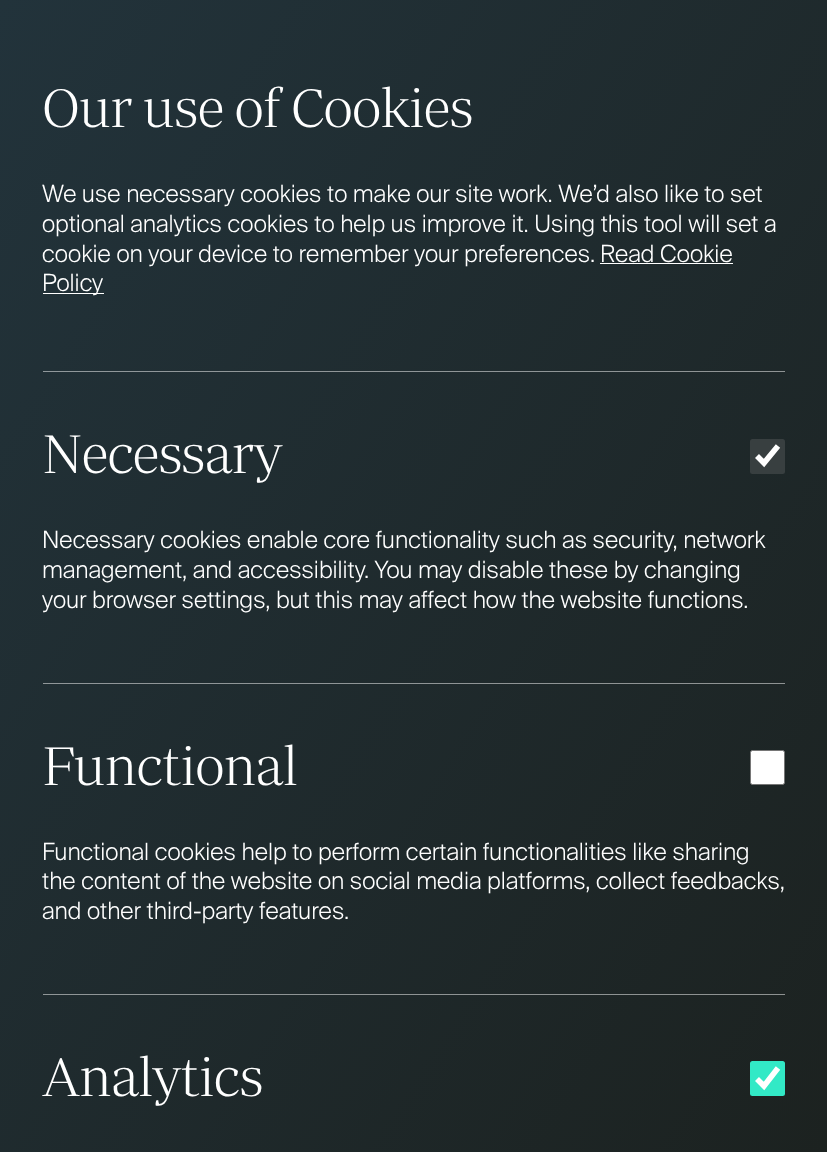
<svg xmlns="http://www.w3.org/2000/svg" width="827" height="1152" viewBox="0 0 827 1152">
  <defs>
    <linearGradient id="g1" gradientUnits="userSpaceOnUse" x1="-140" y1="216" x2="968" y2="936"><stop offset="0" stop-color="#22333b"/><stop offset="1" stop-color="#1c2220"/></linearGradient>
  </defs>
  <rect width="100%" height="100%" fill="#fff"/>
  <path d="M0 0h827v1152H0z" fill="url(#g1)"/>
  <path d="M600 263h133v1H600z" fill="#fff"/>
  <path d="M43 293h61v1H43z" fill="#fff"/>
  <path d="M43 371h742v1H43z" fill="#ffffff80"/>
  <rect x="750" y="439" width="35" height="35" rx="2.5" fill="#383f40"/>
  <path d="M757 456L764 463L778 446" fill="none" stroke="#fff" stroke-width="5.6"/>
  <path d="M43 683h742v1H43z" fill="#ffffff80"/>
  <rect x="750.5" y="750.5" width="34" height="34" rx="2" fill="#fff" stroke="#767676"/>
  <path d="M43 994h742v1H43z" fill="#ffffff80"/>
  <rect x="750" y="1061" width="35" height="35" rx="2.5" fill="#32e9c6"/>
  <path d="M757 1079L764 1086L778 1068" fill="none" stroke="#fff" stroke-width="5.6"/>
  <text x="42" y="127" font-family="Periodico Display" font-size="55.25" letter-spacing="-1.1" fill="#fff">Our use of Cookies</text>
  <g font-family="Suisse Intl" font-size="23.7" font-weight="300" fill="#fff">
    <text x="42" y="202">We use necessary cookies to make our site work. We’d also like to set</text>
    <text x="42" y="232">optional analytics cookies to help us improve it. Using this tool will set a</text>
    <text x="42" y="262">cookie on your device to remember your preferences.</text>
    <text x="600" y="262">Read Cookie</text>
    <text x="42" y="291">Policy</text>
  </g>
  <text x="42" y="473" font-family="Periodico Display" font-size="55.25" letter-spacing="-1.1" fill="#fff">Necessary</text>
  <g font-family="Suisse Intl" font-size="23.7" font-weight="300" fill="#fff">
    <text x="42" y="548">Necessary cookies enable core functionality such as security, network</text>
    <text x="42" y="578">management, and accessibility. You may disable these by changing</text>
    <text x="42" y="608">your browser settings, but this may affect how the website functions.</text>
  </g>
  <text x="42" y="785" font-family="Periodico Display" font-size="55.25" letter-spacing="-1.1" fill="#fff">Functional</text>
  <g font-family="Suisse Intl" font-size="23.7" font-weight="300" fill="#fff">
    <text x="42" y="860">Functional cookies help to perform certain functionalities like sharing</text>
    <text x="42" y="889">the content of the website on social media platforms, collect feedbacks,</text>
    <text x="42" y="919">and other third-party features.</text>
  </g>
  <text x="42" y="1096" font-family="Periodico Display" font-size="55.25" letter-spacing="-1.1" fill="#fff">Analytics</text>
</svg>
